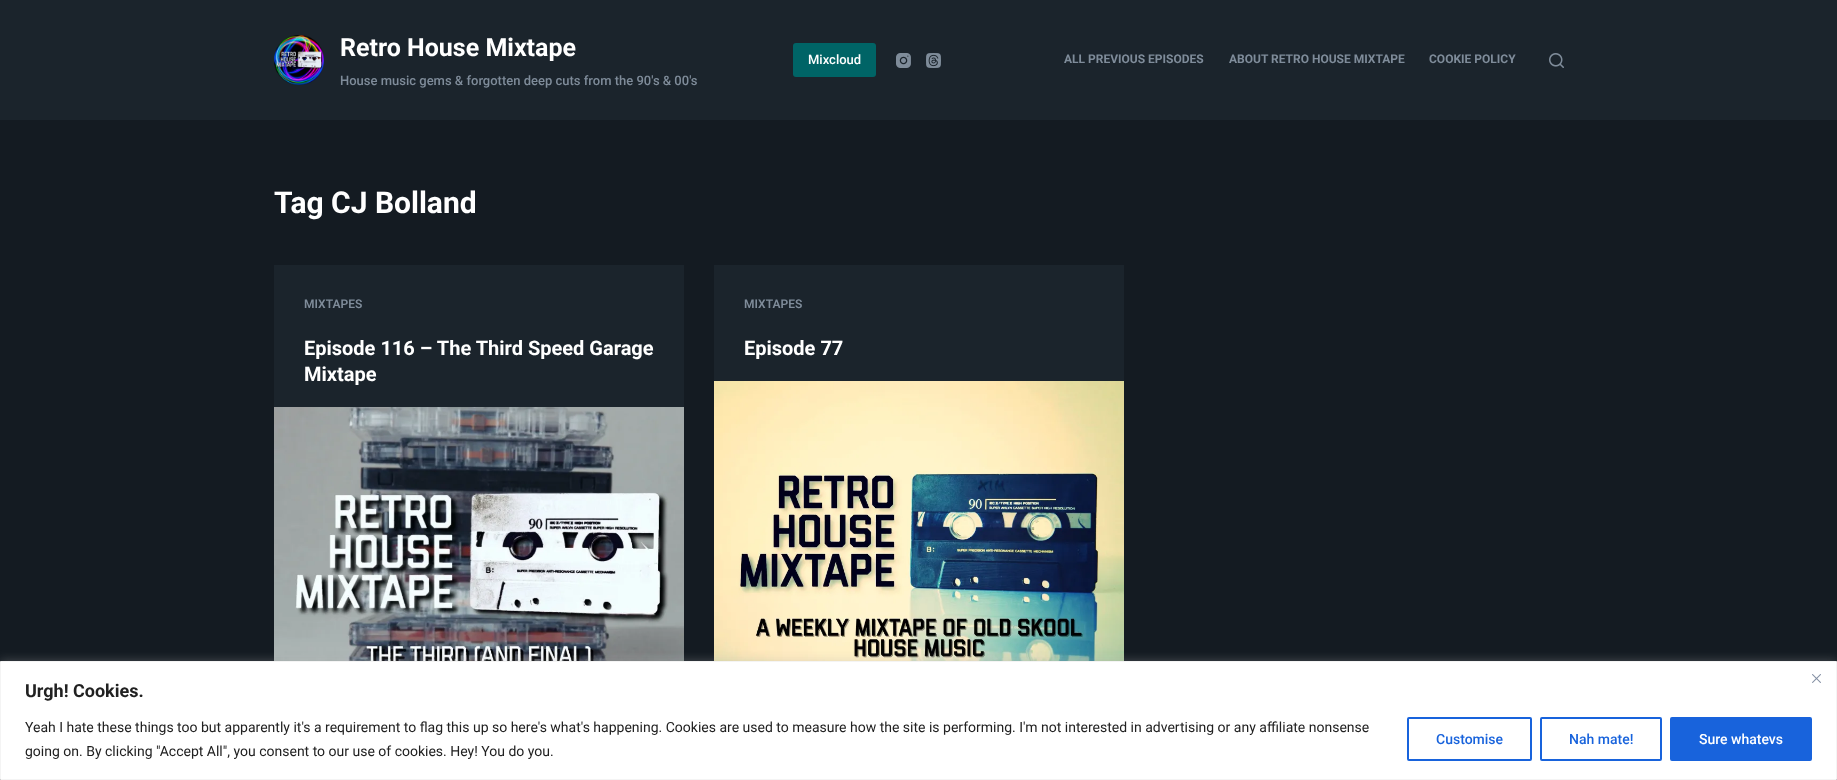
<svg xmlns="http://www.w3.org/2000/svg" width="1837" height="780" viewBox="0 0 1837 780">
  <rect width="100%" height="100%" fill="#141b22"/>
  <path d="M0 0h1837v120H0z" fill="#1b242c"/>
  <image x="274" y="35" width="50" height="50" href="img/1.png"/>
  <rect x="793" y="43" width="83" height="34" rx="3" fill="#006466"/>
  <image x="896" y="53" width="15" height="15" href="img/2.png"/>
  <image x="926" y="53" width="15" height="15" href="img/3.png"/>
  <image x="1549" y="53" width="15" height="15" href="img/4.png"/>
  <path d="M274 265h410v142H274z" fill="#1b242c"/>
  <image x="274" y="407" width="410" height="254" href="img/5.png"/>
  <path d="M714 265h410v116H714z" fill="#1b242c"/>
  <image x="714" y="381" width="410" height="280" href="img/6.png"/>
  <path d="M0 660h1837v119H0z" fill="#acabab4d" filter="blur(5px)"/>
  <path d="M0.5 661.5h1836v118H0.5z" fill="#fff" stroke="#f4f4f4"/>
  <image x="1812" y="674" width="9" height="9" href="img/7.png"/>
  <rect x="1408" y="718" width="123" height="42" rx="1" fill="none" stroke="#1863dc" stroke-width="2"/>
  <rect x="1541" y="718" width="120" height="42" rx="1" fill="none" stroke="#1863dc" stroke-width="2"/>
  <rect x="1671" y="718" width="140" height="42" rx="1" fill="#1863dc" stroke="#1863dc" stroke-width="2"/>
  <text x="340" y="56" font-family="Roboto" font-size="25" font-weight="bold" fill="#fff">Retro House Mixtape</text>
  <text x="340" y="85" font-family="Roboto" font-size="13" font-weight="500" fill="#7f8c9a">House music gems &amp; forgotten deep cuts from the 90's &amp; 00's</text>
  <text x="808" y="64" font-family="Roboto" font-size="13" font-weight="500" fill="#fff">Mixcloud</text>
  <g font-family="Roboto" font-size="12" font-weight="bold" fill="#7f8c9a">
    <text x="1064" y="63">ALL PREVIOUS EPISODES</text>
    <text x="1229" y="63">ABOUT RETRO HOUSE MIXTAPE</text>
    <text x="1429" y="63">COOKIE POLICY</text>
  </g>
  <text x="274" y="213" font-family="Roboto" font-size="30" font-weight="bold" fill="#fff">Tag CJ Bolland</text>
  <text x="304" y="308" font-family="Roboto" font-size="12" font-weight="600" fill="#7f8c9a">MIXTAPES</text>
  <g font-family="Roboto" font-size="20" font-weight="bold" fill="#fff">
    <text x="304" y="355">Episode 116 – The Third Speed Garage</text>
    <text x="304" y="381">Mixtape</text>
  </g>
  <text x="744" y="308" font-family="Roboto" font-size="12" font-weight="600" fill="#7f8c9a">MIXTAPES</text>
  <text x="744" y="355" font-family="Roboto" font-size="20" font-weight="bold" fill="#fff">Episode 77</text>
  <text x="25" y="697" font-family="Roboto" font-size="18" font-weight="bold" fill="#212121">Urgh! Cookies.</text>
  <g font-family="Roboto" font-size="14" fill="#212121">
    <text x="25" y="732">Yeah I hate these things too but apparently it's a requirement to flag this up so here's what's happening. Cookies are used to measure how the site is performing. I'm not interested in advertising or any affiliate nonsense</text>
    <text x="25" y="756">going on. By clicking "Accept All", you consent to our use of cookies. Hey! You do you.</text>
  </g>
  <g font-family="Roboto" font-size="14" font-weight="500" fill="#1863dc">
    <text x="1436" y="744">Customise</text>
    <text x="1569" y="744">Nah mate!</text>
  </g>
  <text x="1699" y="744" font-family="Roboto" font-size="14" font-weight="500" fill="#fff">Sure whatevs</text>
</svg>
